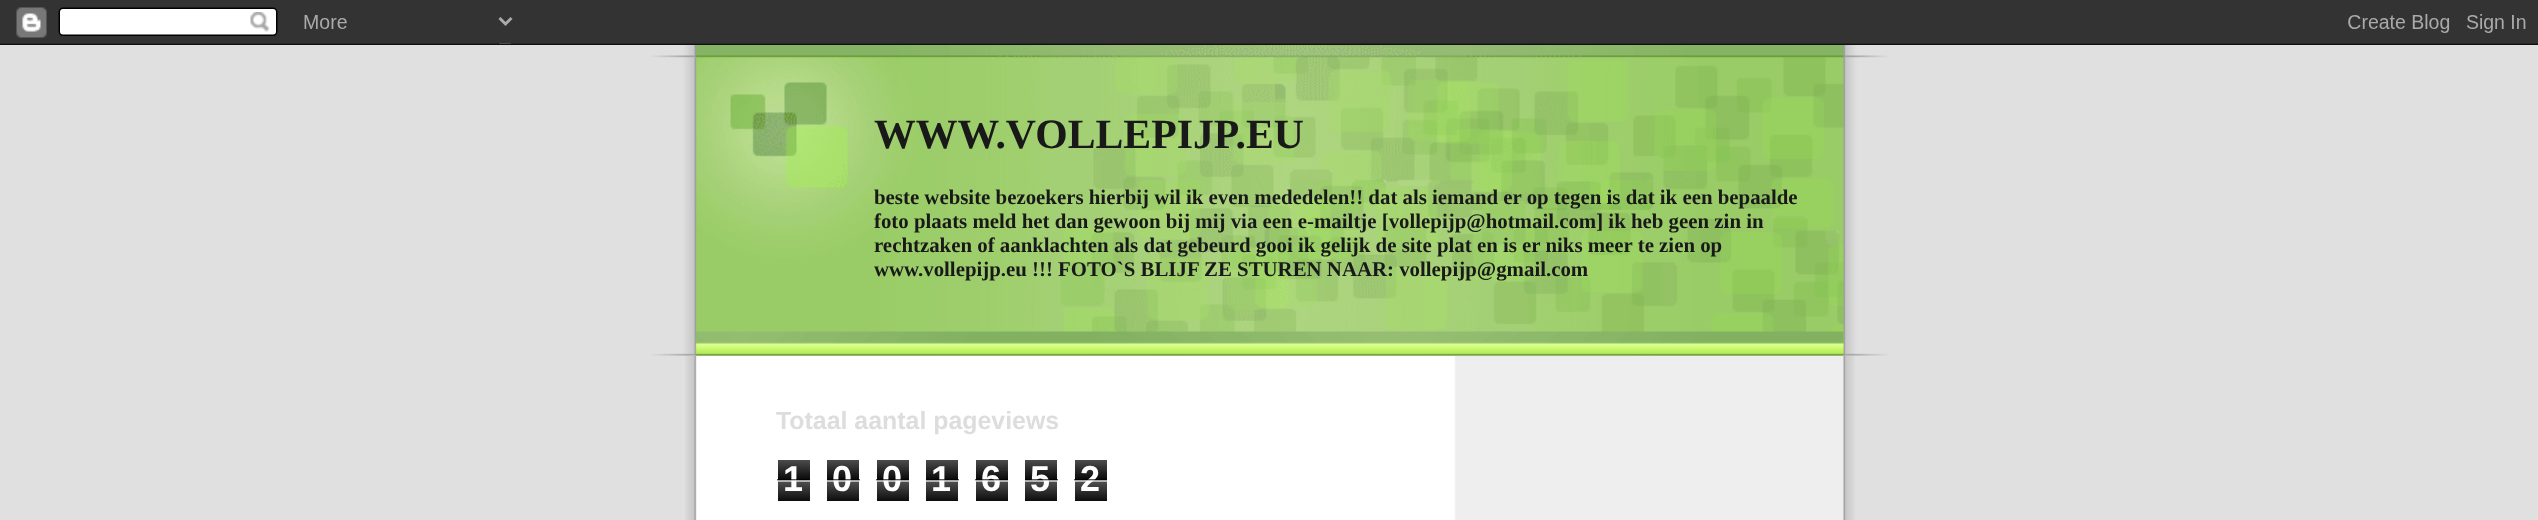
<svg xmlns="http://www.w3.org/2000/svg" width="2538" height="520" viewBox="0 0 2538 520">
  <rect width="100%" height="100%" fill="#e0e0e0"/>
  <image x="0" y="0" width="2538" height="45" href="img/1.png"/>
  <image x="685" y="356" width="1170" height="164" href="img/2.png"/>
  <image x="651" y="45" width="1237" height="311" href="img/3.png"/>
  <image x="651" y="331" width="1237" height="25" href="img/4.png"/>
  <image x="778" y="460" width="32" height="41" href="img/5.png"/>
  <image x="827" y="460" width="32" height="41" href="img/6.png"/>
  <image x="877" y="460" width="32" height="41" href="img/5.png"/>
  <image x="926" y="460" width="32" height="41" href="img/6.png"/>
  <image x="976" y="460" width="32" height="41" href="img/5.png"/>
  <image x="1025" y="460" width="32" height="41" href="img/6.png"/>
  <image x="1075" y="460" width="32" height="41" href="img/5.png"/>
  <text x="874" y="148" font-family="Liberation Serif" font-size="41.75" font-weight="bold" fill="#191919">WWW.VOLLEPIJP.EU</text>
  <g font-family="Liberation Serif" font-size="20.85" font-weight="bold" fill="#191919">
    <text x="874" y="204">beste website bezoekers hierbij wil ik even mededelen!! dat als iemand er op tegen is dat ik een bepaalde</text>
    <text x="874" y="228">foto plaats meld het dan gewoon bij mij via een e-mailtje [vollepijp@hotmail.com] ik heb geen zin in</text>
    <text x="874" y="252">rechtzaken of aanklachten als dat gebeurd gooi ik gelijk de site plat en is er niks meer te zien op</text>
    <text x="874" y="276">www.vollepijp.eu !!! FOTO`S BLIJF ZE STUREN NAAR: vollepijp@gmail.com</text>
  </g>
  <text x="776" y="429" font-family="Liberation Sans" font-size="24.9" font-weight="bold" fill="#ddd">Totaal aantal pageviews</text>
  <text x="783" y="491" font-family="Liberation Sans" font-size="36" font-weight="bold" fill="#fff">1</text>
  <path d="M777 479h33v2H777z" fill="#000000a6"/>
  <path d="M777 480h33v2H777z" fill="#ffffffa6"/>
  <text x="832" y="491" font-family="Liberation Sans" font-size="36" font-weight="bold" fill="#fff">0</text>
  <path d="M827 479h33v2H827z" fill="#000000a6"/>
  <path d="M827 480h33v2H827z" fill="#ffffffa6"/>
  <text x="882" y="491" font-family="Liberation Sans" font-size="36" font-weight="bold" fill="#fff">0</text>
  <path d="M876 479h33v2H876z" fill="#000000a6"/>
  <path d="M876 480h33v2H876z" fill="#ffffffa6"/>
  <text x="931" y="491" font-family="Liberation Sans" font-size="36" font-weight="bold" fill="#fff">1</text>
  <path d="M926 479h33v2H926z" fill="#000000a6"/>
  <path d="M926 480h33v2H926z" fill="#ffffffa6"/>
  <text x="981" y="491" font-family="Liberation Sans" font-size="36" font-weight="bold" fill="#fff">6</text>
  <path d="M975 479h33v2H975z" fill="#000000a6"/>
  <path d="M975 480h33v2H975z" fill="#ffffffa6"/>
  <text x="1030" y="491" font-family="Liberation Sans" font-size="36" font-weight="bold" fill="#fff">5</text>
  <path d="M1025 479h33v2H1025z" fill="#000000a6"/>
  <path d="M1025 480h33v2H1025z" fill="#ffffffa6"/>
  <text x="1080" y="491" font-family="Liberation Sans" font-size="36" font-weight="bold" fill="#fff">2</text>
  <path d="M1074 479h33v2H1074z" fill="#000000a6"/>
  <path d="M1074 480h33v2H1074z" fill="#ffffffa6"/>
</svg>
